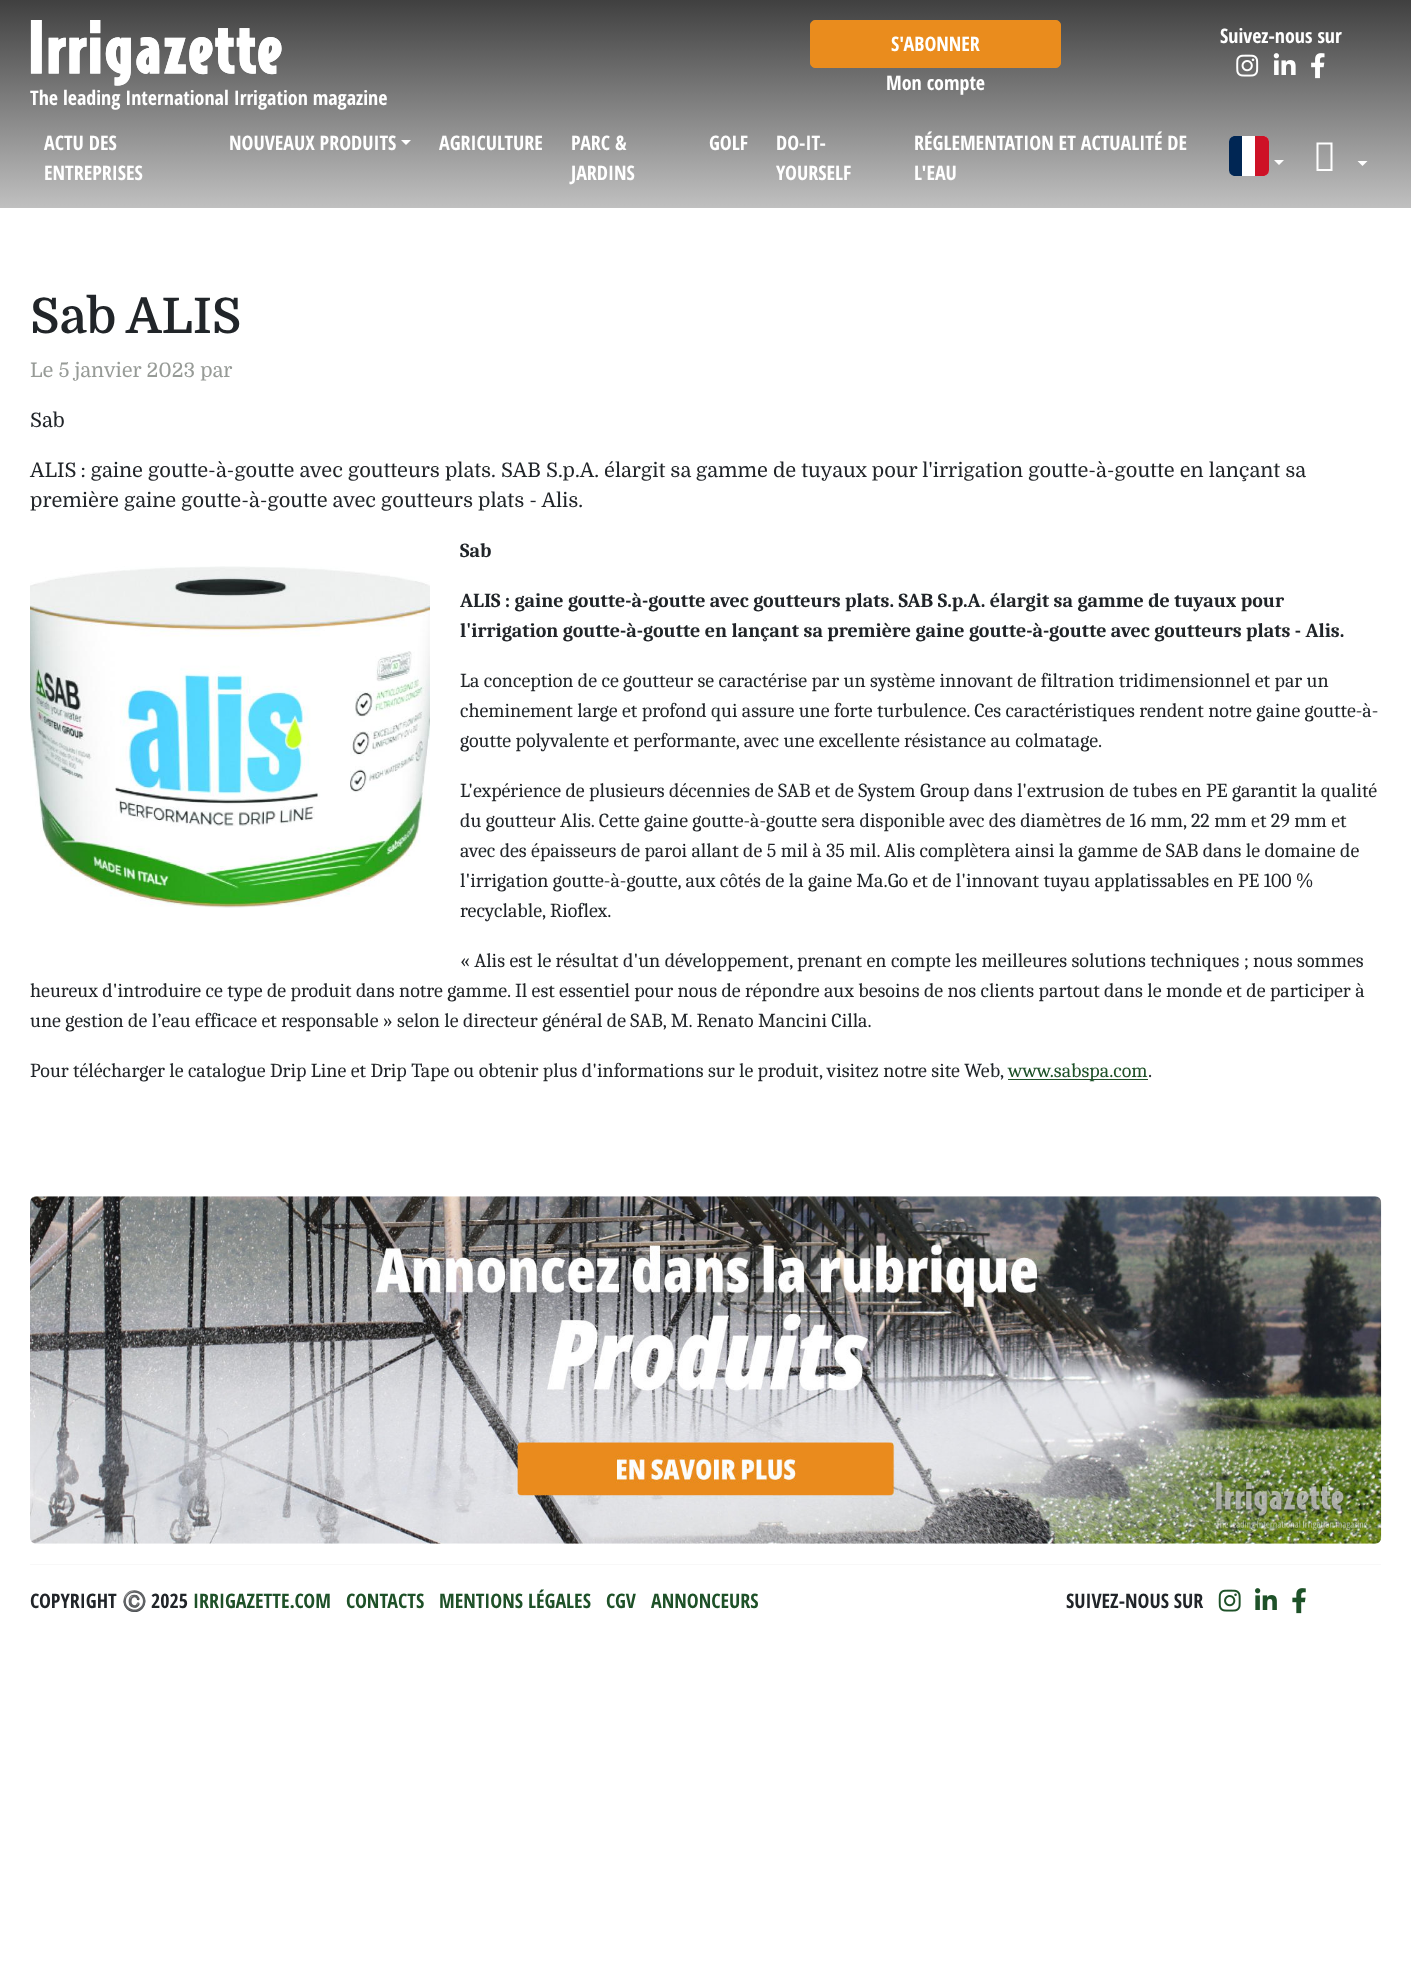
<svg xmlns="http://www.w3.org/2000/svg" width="1411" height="1979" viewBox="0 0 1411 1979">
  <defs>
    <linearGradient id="g1" gradientUnits="userSpaceOnUse" x1="706" y1="0" x2="706" y2="208"><stop offset="0" stop-color="#404040"/><stop offset="1" stop-color="#c0c0c0"/></linearGradient>
  </defs>
  <rect width="100%" height="100%" fill="#fff"/>
  <path d="M0 0h1411v208H0z" fill="url(#g1)"/>
  <rect x="810.5" y="20.5" width="250" height="47" rx="4.5" fill="#ea8c1d" stroke="#ea8c1d"/>
  <image x="1236" y="54" width="23" height="23" href="img/1.png"/>
  <image x="1273" y="53" width="23" height="22" href="img/2.png"/>
  <image x="1311" y="53" width="14" height="26" href="img/3.png"/>
  <image x="30" y="20" width="252" height="66" href="img/4.png"/>
  <path d="M401 140H411L406 145Z" fill="#fff"/>
  <rect x="1229" y="136" width="40" height="40" rx="6" fill="#fff"/>
  <path d="M1235 136H1242V176H1235C1231.5 176 1229 173.5 1229 170V142C1229 138.5 1231.5 136 1235 136Z" fill="#002654"/>
  <path d="M1255 136H1263C1266.5 136 1269 138.5 1269 142V170C1269 173.5 1266.5 176 1263 176H1255Z" fill="#ce1126"/>
  <path d="M1274 160H1284L1279 165ZM1316.5 171V142.5H1332.5V171ZM1318.5 169H1330.5V144.5H1318.5Z" fill="#fff"/>
  <path d="M1357.5 161H1367.5L1362.5 166Z" fill="#fff"/>
  <path d="M1008 1079h140v1H1008z" fill="#1e5128"/>
  <image x="30" y="566" width="400" height="342" href="img/5.png"/>
  <image x="30" y="1196" width="1352" height="348" href="img/6.png"/>
  <path d="M30 1564h1351v1H30z" fill="#f8f8f8"/>
  <image x="1218" y="1589" width="23" height="23" href="img/7.png"/>
  <image x="1255" y="1588" width="22" height="22" href="img/8.png"/>
  <image x="1292" y="1588" width="14" height="26" href="img/9.png"/>
  <g font-family="Open Sans Condensed" font-size="20" font-weight="bold" fill="#fff">
    <text x="891" y="51">S'ABONNER</text>
    <text x="886" y="90">Mon compte</text>
    <text x="1220" y="43">Suivez-nous sur</text>
    <text x="30" y="105">The leading International Irrigation magazine</text>
    <text x="44" y="150">ACTU DES</text>
    <text x="44" y="180">ENTREPRISES</text>
    <text x="229" y="150">NOUVEAUX PRODUITS</text>
    <text x="439" y="150">AGRICULTURE</text>
    <text x="571" y="150">PARC &amp;</text>
    <text x="571" y="180">JARDINS</text>
    <text x="709" y="150">GOLF</text>
    <text x="776" y="150">DO-IT-</text>
    <text x="776" y="180">YOURSELF</text>
    <text x="914" y="150">RÉGLEMENTATION ET ACTUALITÉ DE</text>
    <text x="914" y="180">L'EAU</text>
  </g>
  <g font-family="Domine" font-size="49" font-weight="600" fill="#212529">
    <text x="30" y="333">Sab</text>
    <text x="126" y="333">ALIS</text>
  </g>
  <text x="30" y="377" font-family="Domine" font-size="20" fill="#979b97">Le 5 janvier 2023 par</text>
  <g font-family="Domine" font-size="20" fill="#212529">
    <text x="30" y="427">Sab</text>
    <text x="30" y="477">ALIS : gaine goutte-à-goutte avec goutteurs plats. SAB S.p.A. élargit sa gamme de tuyaux pour l'irrigation goutte-à-goutte en lançant sa</text>
    <text x="30" y="507">première gaine goutte-à-goutte avec goutteurs plats - Alis.</text>
  </g>
  <g font-family="Caladea" font-size="20" font-weight="bold" fill="#212529">
    <text x="460" y="557">Sab</text>
    <text x="460" y="607">ALIS : gaine goutte-à-goutte avec goutteurs plats. SAB S.p.A. élargit sa gamme de tuyaux pour</text>
    <text x="460" y="637">l'irrigation goutte-à-goutte en lançant sa première gaine goutte-à-goutte avec goutteurs plats - Alis.</text>
  </g>
  <g font-family="Caladea" font-size="20" fill="#212529">
    <text x="460" y="687">La conception de ce goutteur se caractérise par un système innovant de filtration tridimensionnel et par un</text>
    <text x="460" y="717">cheminement large et profond qui assure une forte turbulence. Ces caractéristiques rendent notre gaine goutte-à-</text>
    <text x="460" y="747">goutte polyvalente et performante, avec une excellente résistance au colmatage.</text>
    <text x="460" y="797">L'expérience de plusieurs décennies de SAB et de System Group dans l'extrusion de tubes en PE garantit la qualité</text>
    <text x="460" y="827">du goutteur Alis. Cette gaine goutte-à-goutte sera disponible avec des diamètres de 16 mm, 22 mm et 29 mm et</text>
    <text x="460" y="857">avec des épaisseurs de paroi allant de 5 mil à 35 mil. Alis complètera ainsi la gamme de SAB dans le domaine de</text>
    <text x="460" y="887">l'irrigation goutte-à-goutte, aux côtés de la gaine Ma.Go et de l'innovant tuyau applatissables en PE 100 %</text>
    <text x="460" y="917">recyclable, Rioflex.</text>
    <text x="460" y="967">« Alis est le résultat d'un développement, prenant en compte les meilleures solutions techniques ; nous sommes</text>
    <text x="30" y="997">heureux d'introduire ce type de produit dans notre gamme. Il est essentiel pour nous de répondre aux besoins de nos clients partout dans le monde et de participer à</text>
    <text x="30" y="1027">une gestion de l’eau efficace et responsable » selon le directeur général de SAB, M. Renato Mancini Cilla.</text>
    <text x="30" y="1077">Pour télécharger le catalogue Drip Line et Drip Tape ou obtenir plus d'informations sur le produit, visitez notre site Web,</text>
  </g>
  <text x="1008" y="1077" font-family="Caladea" font-size="20" fill="#1e5128">www.sabspa.com</text>
  <text x="1148" y="1077" font-family="Caladea" font-size="20" fill="#212529">.</text>
  <text x="30" y="1608" font-family="Open Sans Condensed" font-size="20" font-weight="bold" fill="#212529">COPYRIGHT</text>
  <text x="122" y="1608" font-family="Noto Color Emoji" font-size="20" font-weight="bold" fill="#212529">©️</text>
  <text x="151" y="1608" font-family="Open Sans Condensed" font-size="20" font-weight="bold" fill="#212529">2025</text>
  <g font-family="Open Sans Condensed" font-size="20" font-weight="bold" fill="#1e5128">
    <text x="193" y="1608">IRRIGAZETTE.COM</text>
    <text x="346" y="1608">CONTACTS</text>
    <text x="439" y="1608">MENTIONS LÉGALES</text>
    <text x="606" y="1608">CGV</text>
    <text x="651" y="1608">ANNONCEURS</text>
  </g>
  <text x="1066" y="1608" font-family="Open Sans Condensed" font-size="20" font-weight="bold" fill="#212529">SUIVEZ-NOUS SUR</text>
</svg>
